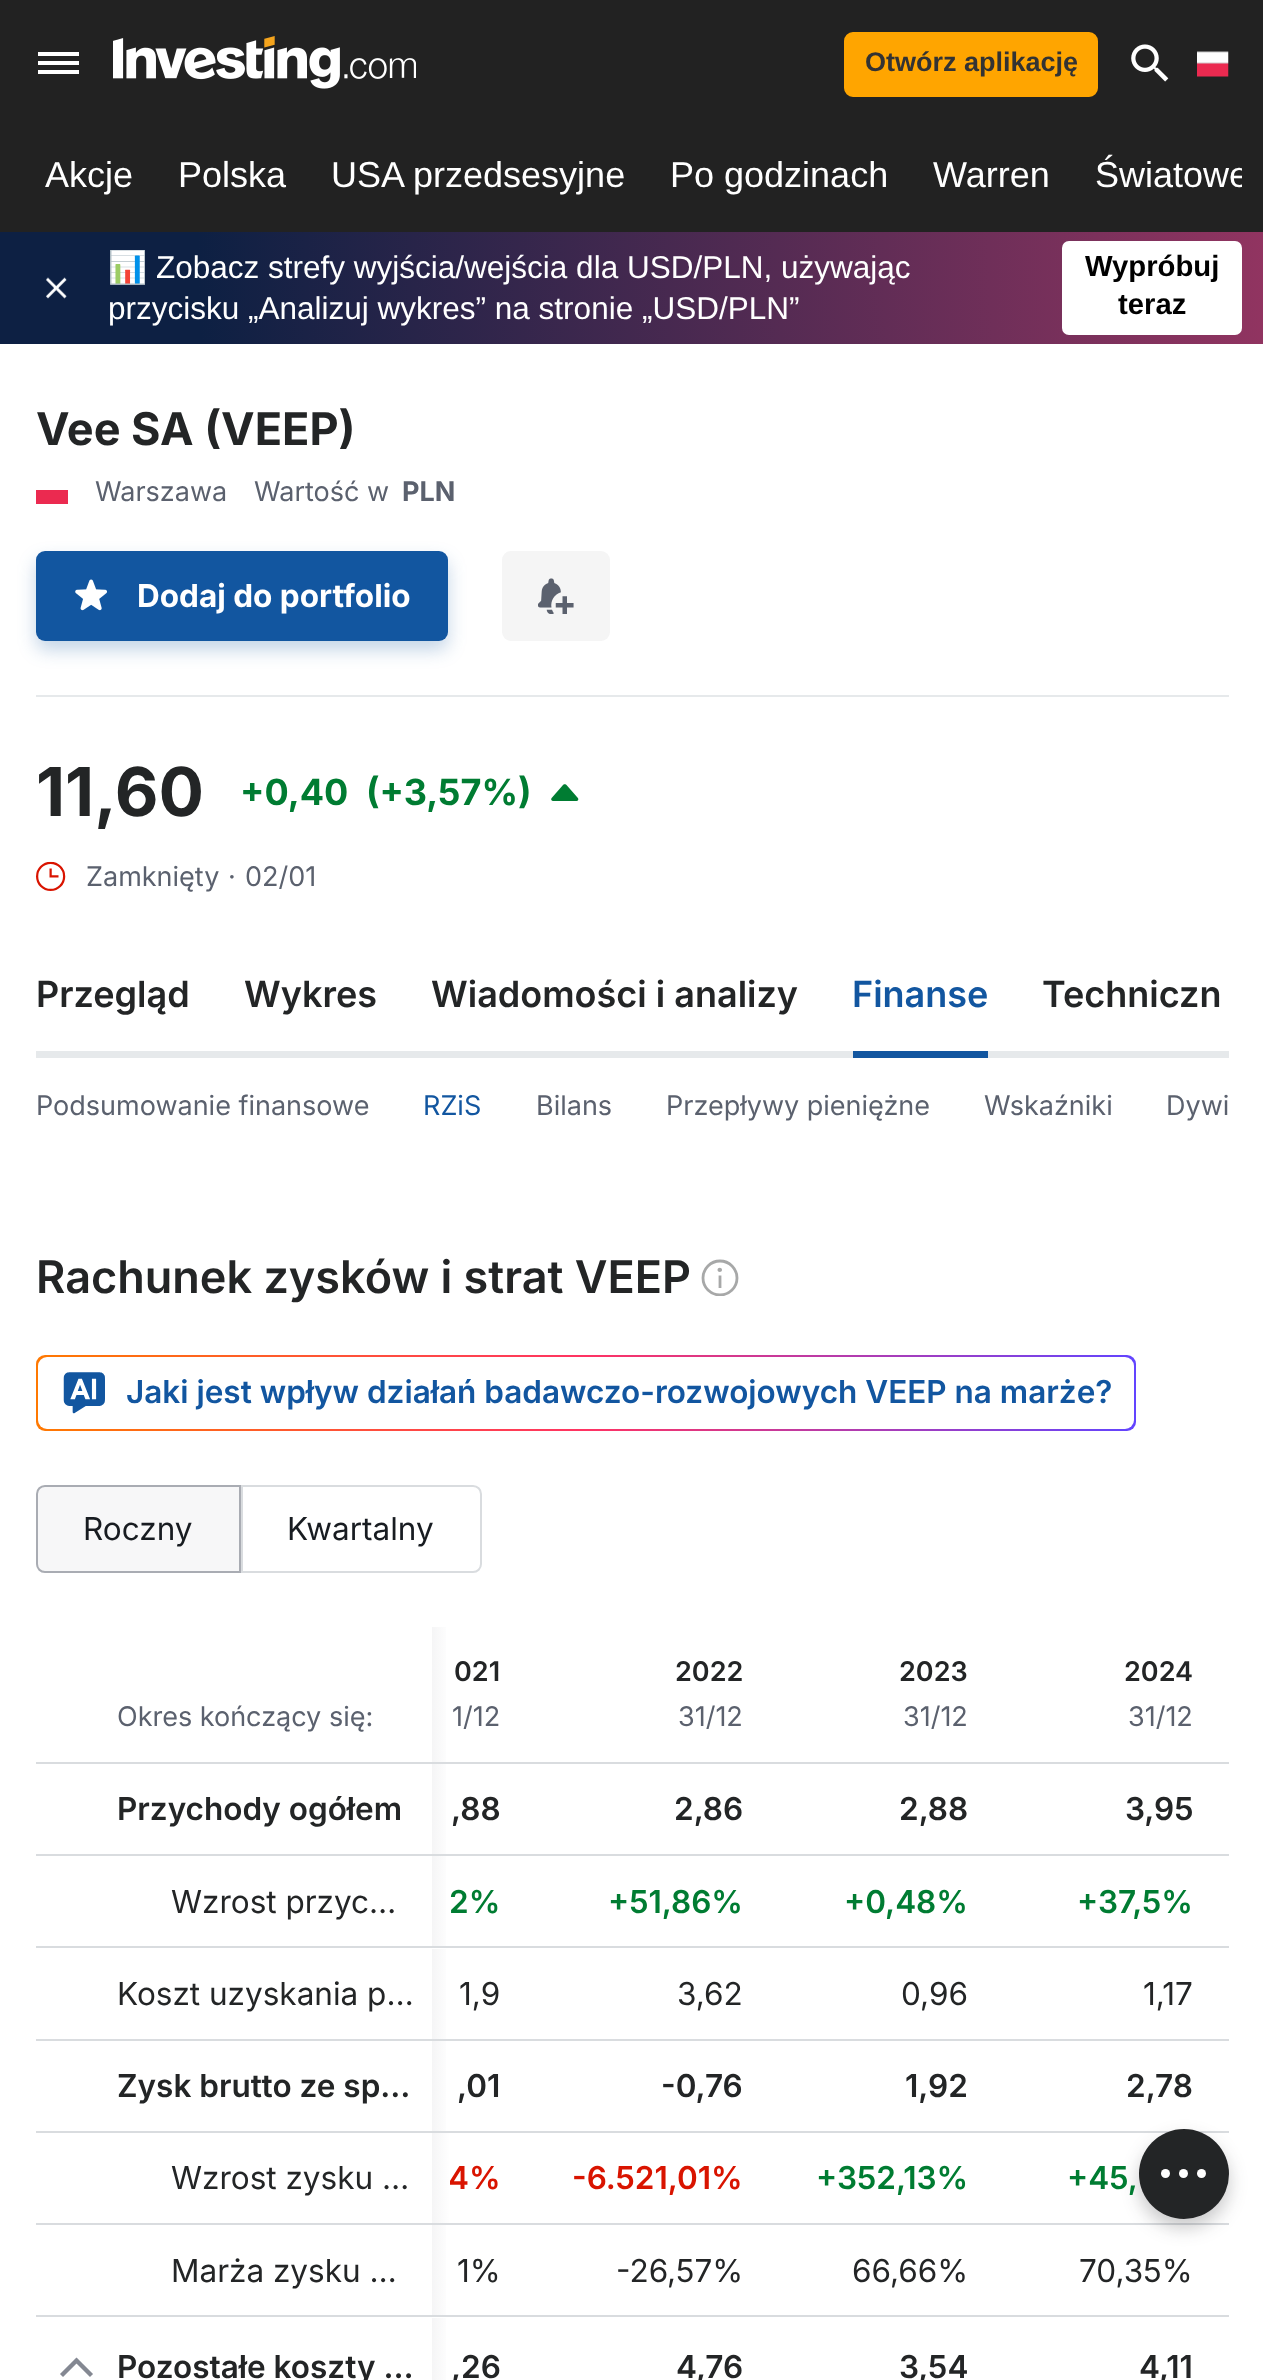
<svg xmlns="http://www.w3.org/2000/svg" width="1263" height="2380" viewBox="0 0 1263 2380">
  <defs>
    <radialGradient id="g1" gradientUnits="userSpaceOnUse" cx="1998" cy="256" r="2000"><stop offset="0" stop-color="#ec4275"/><stop offset="0.9" stop-color="#0d2043"/></radialGradient>
    <clipPath id="clip1"><path d="M700 1258h40v38H700z"/></clipPath>
    <linearGradient id="g2" gradientUnits="userSpaceOnUse" x1="36" y1="1393" x2="1136" y2="1393"><stop offset="0" stop-color="#ff7901"/><stop offset="0.5" stop-color="#ff3363"/><stop offset="1" stop-color="#6244ff"/></linearGradient>
    <linearGradient id="g3" gradientUnits="userSpaceOnUse" x1="432" y1="1694" x2="450" y2="1694"><stop offset="0" stop-color="#f5f5f6"/><stop offset="1" stop-color="#fff"/></linearGradient>
    <linearGradient id="g4" gradientUnits="userSpaceOnUse" x1="432" y1="1809" x2="450" y2="1809"><stop offset="0" stop-color="#f5f5f6"/><stop offset="1" stop-color="#fff"/></linearGradient>
    <linearGradient id="g5" gradientUnits="userSpaceOnUse" x1="432" y1="1901" x2="450" y2="1901"><stop offset="0" stop-color="#f5f5f6"/><stop offset="1" stop-color="#fff"/></linearGradient>
    <linearGradient id="g6" gradientUnits="userSpaceOnUse" x1="432" y1="1994" x2="450" y2="1994"><stop offset="0" stop-color="#f5f5f6"/><stop offset="1" stop-color="#fff"/></linearGradient>
    <linearGradient id="g7" gradientUnits="userSpaceOnUse" x1="432" y1="2086" x2="450" y2="2086"><stop offset="0" stop-color="#f5f5f6"/><stop offset="1" stop-color="#fff"/></linearGradient>
    <linearGradient id="g8" gradientUnits="userSpaceOnUse" x1="432" y1="2270" x2="450" y2="2270"><stop offset="0" stop-color="#f5f5f6"/><stop offset="1" stop-color="#fff"/></linearGradient>
    <linearGradient id="g9" gradientUnits="userSpaceOnUse" x1="432" y1="2367" x2="450" y2="2367"><stop offset="0" stop-color="#f5f5f6"/><stop offset="1" stop-color="#fff"/></linearGradient>
    <clipPath id="clip2"><path d="M23 126h1219v106H23z"/></clipPath>
    <linearGradient id="g10" gradientUnits="userSpaceOnUse" x1="432" y1="2178" x2="450" y2="2178"><stop offset="0" stop-color="#f5f5f6"/><stop offset="1" stop-color="#fff"/></linearGradient>
  </defs>
  <rect width="100%" height="100%" fill="#fff"/>
  <path d="M0 0h1263v232H0z" fill="#222"/>
  <path d="M38 74H79V70H38ZM38 65H79V61H38ZM38 52V56H79V52Z" fill="#fff" fill-rule="evenodd"/>
  <image x="113" y="36" width="303" height="53" href="img/1.png"/>
  <rect x="845" y="33" width="252" height="63" rx="8" fill="#ffa500" stroke="#ffa500" stroke-width="2"/>
  <image x="1131" y="44" width="38" height="38" href="img/2.png"/>
  <image x="1197" y="51" width="32" height="26" href="img/3.png"/>
  <path d="M0 232h1263v112H0z" fill="url(#g1)"/>
  <image x="46" y="277" width="21" height="22" href="img/4.png"/>
  <rect x="1062" y="241" width="180" height="94" rx="7" fill="#fff"/>
  <path d="M36 490h32v14H36z" fill="#eb2a50"/>
  <rect x="36" y="560" width="412" height="90" rx="9" fill="#1256a040" filter="blur(9px)"/>
  <rect x="36" y="551" width="412" height="90" rx="9" fill="#1256a0"/>
  <image x="75" y="579" width="32" height="32" href="img/5.png"/>
  <rect x="502" y="551" width="108" height="90" rx="9" fill="#f5f5f5"/>
  <image x="538" y="578" width="36" height="36" href="img/6.png"/>
  <path d="M36 695h1193v2H36z" fill="#e6e9eb"/>
  <image x="551" y="784" width="28" height="17" href="img/7.png"/>
  <image x="36" y="861" width="30" height="30" href="img/8.png"/>
  <path d="M36 1051h1193v7H36z" fill="#e6e9eb"/>
  <path d="M853 1051h135v7H853z" fill="#1256a0"/>
  <g clip-path="url(#clip1)">
    <circle cx="720" cy="1278" r="17" fill="none" stroke="#a7a8a8" stroke-width="2.8"/>
  </g>
  <path d="M720 1275.5V1288" fill="none" stroke="#a7a8a8" stroke-width="2.8"/>
  <path d="M717.5 1270C717.5 1267 722 1267 722 1270C722 1272.5 717.5 1272.5 717.5 1270" fill="#a7a8a8" fill-rule="evenodd"/>
  <rect x="36" y="1355" width="1100" height="76" rx="9" fill="url(#g2)"/>
  <rect x="38" y="1357" width="1096" height="72" rx="9" fill="#fff"/>
  <image x="63" y="1372" width="42" height="42" href="img/9.png"/>
  <path d="M45 1485H241V1573H45C40 1573 36 1569 36 1564V1494C36 1489 40 1485 45 1485Z" fill="#f7f7f8"/>
  <path d="M45 1486H240V1572H45C40.5 1572 37 1568.5 37 1564V1494C37 1489.5 40.5 1486 45 1486Z" fill="none" stroke="#5b616e80" stroke-width="2"/>
  <path d="M242 1486H473C477.5 1486 481 1489.5 481 1494V1564C481 1568.5 477.5 1572 473 1572H242Z" fill="none" stroke="#d9dcdf" stroke-width="2"/>
  <path d="M432 1627h14v135H432z" fill="url(#g3)"/>
  <path d="M36 1762h1193v2H36z" fill="#d9dcdf"/>
  <path d="M432 1764h14v90H432z" fill="url(#g4)"/>
  <path d="M36 1854h1193v2H36z" fill="#d9dcdf"/>
  <path d="M432 1856h14v90H432z" fill="url(#g5)"/>
  <path d="M36 1946h1193v2H36z" fill="#d9dcdf"/>
  <path d="M432 1949h14v90H432z" fill="url(#g6)"/>
  <path d="M36 2039h1193v2H36z" fill="#d9dcdf"/>
  <path d="M432 2041h14v90H432z" fill="url(#g7)"/>
  <path d="M36 2131h1193v2H36z" fill="#d9dcdf"/>
  <path d="M36 2223h1193v2H36z" fill="#d9dcdf"/>
  <path d="M432 2225h14v90H432z" fill="url(#g8)"/>
  <path d="M36 2315h1193v2H36z" fill="#d9dcdf"/>
  <path d="M61.5 2375.5L76.5 2360.5L91.5 2375.5" fill="none" stroke="#848892" stroke-width="4.3"/>
  <path d="M432 2318h14v62H432z" fill="url(#g9)"/>
  <rect x="1139" y="2138" width="90" height="90" rx="45" fill="#23252640" filter="blur(9px)"/>
  <circle cx="1184" cy="2174" r="45" fill="#232526"/>
  <circle cx="1201.5" cy="2173.5" r="4.5" fill="#fff"/>
  <circle cx="1165.5" cy="2173.5" r="4.5" fill="#fff"/>
  <circle cx="1183.5" cy="2173.5" r="4.5" fill="#fff"/>
  <text x="865" y="71" font-family="Liberation Sans" font-size="27" font-weight="bold" fill="#333">Otwórz aplikację</text>
  <g font-family="Liberation Sans" font-size="36" fill="#fff">
    <text x="45" y="187">Akcje</text>
    <text x="178" y="187">Polska</text>
    <text x="331" y="187">USA przedsesyjne</text>
    <text x="670" y="187">Po godzinach</text>
    <text x="933" y="187">Warren</text>
  </g>
  <g clip-path="url(#clip2)">
    <text x="1095" y="187" font-family="Liberation Sans" font-size="36" fill="#fff">Światowe</text>
  </g>
  <text x="108" y="278" font-family="Noto Color Emoji" font-size="31.5" fill="#fff">📊</text>
  <g font-family="Liberation Sans" font-size="31.5" fill="#fff">
    <text x="156" y="278">Zobacz strefy wyjścia/wejścia dla USD/PLN, używając</text>
    <text x="108" y="319">przycisku „Analizuj wykres” na stronie „USD/PLN”</text>
  </g>
  <g font-family="Liberation Sans" font-size="29.25" font-weight="bold" fill="#000">
    <text x="1085" y="276">Wypróbuj</text>
    <text x="1118" y="314">teraz</text>
  </g>
  <text x="36" y="445" font-family="Inter" font-size="45" font-weight="bold" fill="#232526">Vee SA (VEEP)</text>
  <g font-family="Inter" font-size="27" fill="#5b616e">
    <text x="95" y="501">Warszawa</text>
    <text x="254" y="501">Wartość w</text>
  </g>
  <text x="402" y="501" font-family="Inter" font-size="27" font-weight="bold" fill="#5b616e">PLN</text>
  <text x="137" y="607" font-family="Inter" font-size="31.5" font-weight="bold" fill="#fff">Dodaj do portfolio</text>
  <text x="36" y="816" font-family="Inter" font-size="67.5" font-weight="bold" fill="#232526">11,60</text>
  <g font-family="Inter" font-size="36" font-weight="bold" fill="#007c32">
    <text x="240" y="805">+0,40</text>
    <text x="366" y="805">(+3,57%)</text>
  </g>
  <g font-family="Inter" font-size="27" fill="#5b616e">
    <text x="86" y="886">Zamknięty</text>
    <text x="228" y="886">·</text>
    <text x="245" y="886">02/01</text>
  </g>
  <g font-family="Inter" font-size="36" font-weight="600" fill="#232526">
    <text x="36" y="1007">Przegląd</text>
    <text x="244" y="1007">Wykres</text>
    <text x="431" y="1007">Wiadomości i analizy</text>
  </g>
  <text x="852" y="1007" font-family="Inter" font-size="36" font-weight="600" fill="#1256a0">Finanse</text>
  <text x="1042" y="1007" font-family="Inter" font-size="36" font-weight="600" fill="#232526">Techniczn</text>
  <text x="36" y="1115" font-family="Inter" font-size="27" fill="#5b616e">Podsumowanie finansowe</text>
  <text x="423" y="1115" font-family="Inter" font-size="27" fill="#1256a0">RZiS</text>
  <g font-family="Inter" font-size="27" fill="#5b616e">
    <text x="536" y="1115">Bilans</text>
    <text x="666" y="1115">Przepływy pieniężne</text>
    <text x="984" y="1115">Wskaźniki</text>
    <text x="1166" y="1115">Dywi</text>
  </g>
  <text x="36" y="1293" font-family="Inter" font-size="45" font-weight="600" fill="#232526">Rachunek zysków i strat VEEP</text>
  <text x="126" y="1403" font-family="Inter" font-size="31.5" font-weight="600" fill="#1256a0">Jaki jest wpływ działań badawczo-rozwojowych VEEP na marże?</text>
  <g font-family="Inter" font-size="31.5" fill="#181c21">
    <text x="83" y="1540">Roczny</text>
    <text x="287" y="1540">Kwartalny</text>
  </g>
  <text x="117" y="1726" font-family="Inter" font-size="27" fill="#5b616e">Okres kończący się:</text>
  <text x="454" y="1681" font-family="Inter" font-size="27" font-weight="600" fill="#232526">021</text>
  <text x="452" y="1726" font-family="Inter" font-size="27" fill="#5b616e">1/12</text>
  <text x="675" y="1681" font-family="Inter" font-size="27" font-weight="600" fill="#232526">2022</text>
  <text x="678" y="1726" font-family="Inter" font-size="27" fill="#5b616e">31/12</text>
  <text x="899" y="1681" font-family="Inter" font-size="27" font-weight="600" fill="#232526">2023</text>
  <text x="903" y="1726" font-family="Inter" font-size="27" fill="#5b616e">31/12</text>
  <text x="1124" y="1681" font-family="Inter" font-size="27" font-weight="600" fill="#232526">2024</text>
  <text x="1128" y="1726" font-family="Inter" font-size="27" fill="#5b616e">31/12</text>
  <g font-family="Inter" font-size="31.5" font-weight="600" fill="#232526">
    <text x="117" y="1820">Przychody ogółem</text>
    <text x="451" y="1820">,88</text>
    <text x="674" y="1820">2,86</text>
    <text x="899" y="1820">2,88</text>
    <text x="1125" y="1820">3,95</text>
  </g>
  <text x="171" y="1913" font-family="Inter" font-size="31.5" fill="#232526">Wzrost przyc…</text>
  <g font-family="Inter" font-size="31.5" font-weight="600" fill="#007c32">
    <text x="449" y="1913">2%</text>
    <text x="608" y="1913">+51,86%</text>
    <text x="844" y="1913">+0,48%</text>
    <text x="1077" y="1913">+37,5%</text>
  </g>
  <g font-family="Inter" font-size="31.5" fill="#232526">
    <text x="117" y="2005">Koszt uzyskania p…</text>
    <text x="459" y="2005">1,9</text>
    <text x="677" y="2005">3,62</text>
    <text x="901" y="2005">0,96</text>
    <text x="1143" y="2005">1,17</text>
  </g>
  <g font-family="Inter" font-size="31.5" font-weight="600" fill="#232526">
    <text x="117" y="2097">Zysk brutto ze sp…</text>
    <text x="457" y="2097">,01</text>
    <text x="661" y="2097">-0,76</text>
    <text x="905" y="2097">1,92</text>
    <text x="1126" y="2097">2,78</text>
  </g>
  <text x="171" y="2189" font-family="Inter" font-size="31.5" fill="#232526">Wzrost zysku …</text>
  <text x="448" y="2189" font-family="Inter" font-size="31.5" font-weight="600" fill="#d91400">4%</text>
  <path d="M432 2133h18v90H432z" fill="url(#g10)"/>
  <text x="572" y="2189" font-family="Inter" font-size="31.5" font-weight="600" fill="#d91400">-6.521,01%</text>
  <g font-family="Inter" font-size="31.5" font-weight="600" fill="#007c32">
    <text x="816" y="2189">+352,13%</text>
    <text x="1067" y="2189">+45,</text>
  </g>
  <g font-family="Inter" font-size="31.5" fill="#232526">
    <text x="171" y="2282">Marża zysku …</text>
    <text x="457" y="2282">1%</text>
    <text x="616" y="2282">-26,57%</text>
    <text x="852" y="2282">66,66%</text>
    <text x="1079" y="2282">70,35%</text>
  </g>
  <g font-family="Inter" font-size="31.5" font-weight="600" fill="#232526">
    <text x="117" y="2378">Pozostałe koszty …</text>
    <text x="451" y="2378">,26</text>
    <text x="676" y="2378">4,76</text>
    <text x="899" y="2378">3,54</text>
    <text x="1139" y="2378">4,11</text>
  </g>
</svg>
